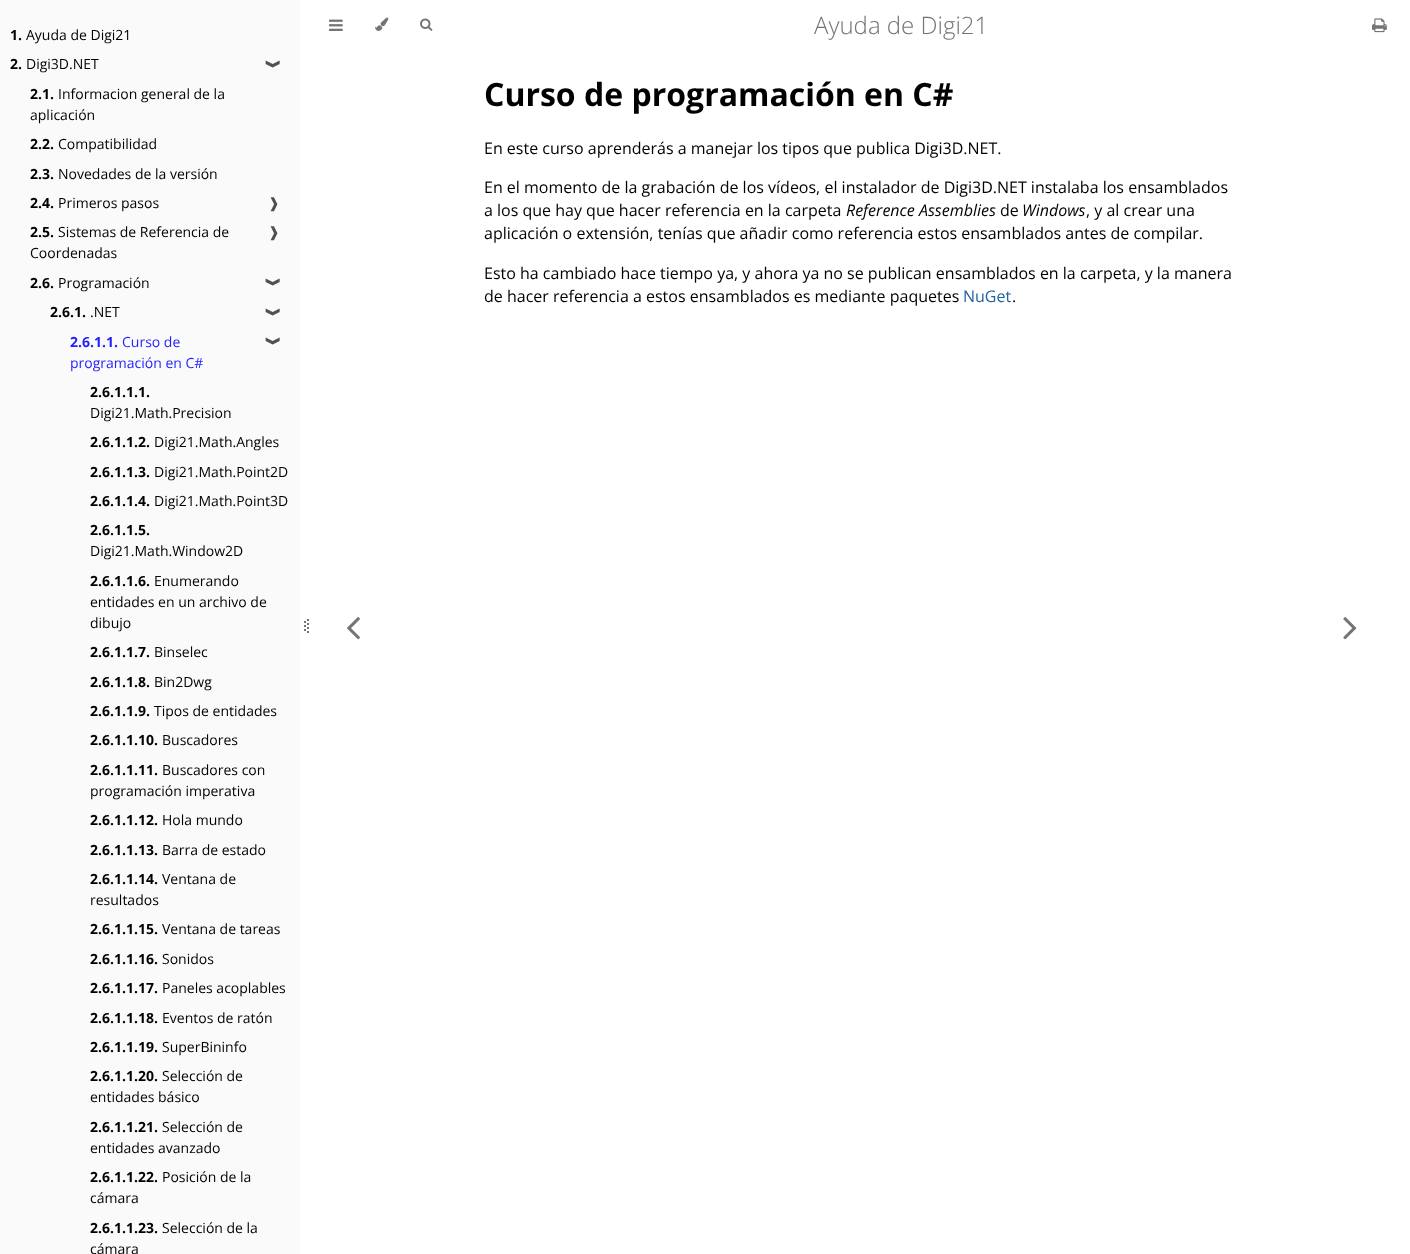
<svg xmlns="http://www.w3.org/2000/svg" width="1410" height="1254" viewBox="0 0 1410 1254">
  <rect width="100%" height="100%" fill="#fff"/>
  <path d="M0 0h300v1254H0z" fill="#fafafa"/>
  <path d="M305 621V623M305 625V627M305 629V631" fill="none" stroke="#747474" stroke-width="2"/>
  <path d="M308 619V635" fill="none" stroke="#747474" stroke-width="2" stroke-dasharray="2 2"/>
  <image x="329" y="19" width="14" height="12" href="img/1.png"/>
  <image x="375" y="17" width="14" height="14" href="img/2.png"/>
  <image x="420" y="18" width="13" height="13" href="img/3.png"/>
  <image x="1372" y="18" width="15" height="15" href="img/4.png"/>
  <image x="347" y="617" width="13" height="23" href="img/5.png"/>
  <image x="1343" y="617" width="14" height="23" href="img/6.png"/>
  <text x="10" y="40" font-family="Open Sans" font-size="14" font-weight="bold" fill="#000">1.</text>
  <text x="26" y="40" font-family="Open Sans" font-size="14" fill="#000">Ayuda de Digi21</text>
  <text x="10" y="69" font-family="Open Sans" font-size="14" font-weight="bold" fill="#000">2.</text>
  <text x="26" y="69" font-family="Open Sans" font-size="14" fill="#000">Digi3D.NET</text>
  <text x="269" y="58" transform="rotate(90 269 58)" font-family="DejaVu Sans" font-size="14" fill="#505050">❱</text>
  <text x="30" y="99" font-family="Open Sans" font-size="14" font-weight="bold" fill="#000">2.1.</text>
  <g font-family="Open Sans" font-size="14" fill="#000">
    <text x="58" y="99">Informacion general de la</text>
    <text x="30" y="120">aplicación</text>
  </g>
  <text x="30" y="149" font-family="Open Sans" font-size="14" font-weight="bold" fill="#000">2.2.</text>
  <text x="58" y="149" font-family="Open Sans" font-size="14" fill="#000">Compatibilidad</text>
  <text x="30" y="179" font-family="Open Sans" font-size="14" font-weight="bold" fill="#000">2.3.</text>
  <text x="58" y="179" font-family="Open Sans" font-size="14" fill="#000">Novedades de la versión</text>
  <text x="30" y="208" font-family="Open Sans" font-size="14" font-weight="bold" fill="#000">2.4.</text>
  <text x="58" y="208" font-family="Open Sans" font-size="14" fill="#000">Primeros pasos</text>
  <text x="268" y="208" font-family="DejaVu Sans" font-size="14" fill="#505050">❱</text>
  <text x="30" y="237" font-family="Open Sans" font-size="14" font-weight="bold" fill="#000">2.5.</text>
  <g font-family="Open Sans" font-size="14" fill="#000">
    <text x="58" y="237">Sistemas de Referencia de</text>
    <text x="30" y="258">Coordenadas</text>
  </g>
  <text x="268" y="237" font-family="DejaVu Sans" font-size="14" fill="#505050">❱</text>
  <text x="30" y="288" font-family="Open Sans" font-size="14" font-weight="bold" fill="#000">2.6.</text>
  <text x="58" y="288" font-family="Open Sans" font-size="14" fill="#000">Programación</text>
  <text x="269" y="276" transform="rotate(90 269 276)" font-family="DejaVu Sans" font-size="14" fill="#505050">❱</text>
  <text x="50" y="317" font-family="Open Sans" font-size="14" font-weight="bold" fill="#000">2.6.1.</text>
  <text x="90" y="317" font-family="Open Sans" font-size="14" fill="#000">.NET</text>
  <text x="269" y="306" transform="rotate(90 269 306)" font-family="DejaVu Sans" font-size="14" fill="#505050">❱</text>
  <text x="70" y="347" font-family="Open Sans" font-size="14" font-weight="bold" fill="#1f1fff">2.6.1.1.</text>
  <g font-family="Open Sans" font-size="14" fill="#1f1fff">
    <text x="122" y="347">Curso de</text>
    <text x="70" y="368">programación en C#</text>
  </g>
  <text x="269" y="335" transform="rotate(90 269 335)" font-family="DejaVu Sans" font-size="14" fill="#505050">❱</text>
  <text x="90" y="397" font-family="Open Sans" font-size="14" font-weight="bold" fill="#000">2.6.1.1.1.</text>
  <text x="90" y="418" font-family="Open Sans" font-size="14" fill="#000">Digi21.Math.Precision</text>
  <text x="90" y="447" font-family="Open Sans" font-size="14" font-weight="bold" fill="#000">2.6.1.1.2.</text>
  <text x="154" y="447" font-family="Open Sans" font-size="14" fill="#000">Digi21.Math.Angles</text>
  <text x="90" y="477" font-family="Open Sans" font-size="14" font-weight="bold" fill="#000">2.6.1.1.3.</text>
  <text x="154" y="477" font-family="Open Sans" font-size="14" fill="#000">Digi21.Math.Point2D</text>
  <text x="90" y="506" font-family="Open Sans" font-size="14" font-weight="bold" fill="#000">2.6.1.1.4.</text>
  <text x="154" y="506" font-family="Open Sans" font-size="14" fill="#000">Digi21.Math.Point3D</text>
  <text x="90" y="535" font-family="Open Sans" font-size="14" font-weight="bold" fill="#000">2.6.1.1.5.</text>
  <text x="90" y="556" font-family="Open Sans" font-size="14" fill="#000">Digi21.Math.Window2D</text>
  <text x="90" y="586" font-family="Open Sans" font-size="14" font-weight="bold" fill="#000">2.6.1.1.6.</text>
  <g font-family="Open Sans" font-size="14" fill="#000">
    <text x="154" y="586">Enumerando</text>
    <text x="90" y="607">entidades en un archivo de</text>
    <text x="90" y="628">dibujo</text>
  </g>
  <text x="90" y="657" font-family="Open Sans" font-size="14" font-weight="bold" fill="#000">2.6.1.1.7.</text>
  <text x="154" y="657" font-family="Open Sans" font-size="14" fill="#000">Binselec</text>
  <text x="90" y="687" font-family="Open Sans" font-size="14" font-weight="bold" fill="#000">2.6.1.1.8.</text>
  <text x="154" y="687" font-family="Open Sans" font-size="14" fill="#000">Bin2Dwg</text>
  <text x="90" y="716" font-family="Open Sans" font-size="14" font-weight="bold" fill="#000">2.6.1.1.9.</text>
  <text x="154" y="716" font-family="Open Sans" font-size="14" fill="#000">Tipos de entidades</text>
  <text x="90" y="745" font-family="Open Sans" font-size="14" font-weight="bold" fill="#000">2.6.1.1.10.</text>
  <text x="162" y="745" font-family="Open Sans" font-size="14" fill="#000">Buscadores</text>
  <text x="90" y="775" font-family="Open Sans" font-size="14" font-weight="bold" fill="#000">2.6.1.1.11.</text>
  <g font-family="Open Sans" font-size="14" fill="#000">
    <text x="162" y="775">Buscadores con</text>
    <text x="90" y="796">programación imperativa</text>
  </g>
  <text x="90" y="825" font-family="Open Sans" font-size="14" font-weight="bold" fill="#000">2.6.1.1.12.</text>
  <text x="162" y="825" font-family="Open Sans" font-size="14" fill="#000">Hola mundo</text>
  <text x="90" y="855" font-family="Open Sans" font-size="14" font-weight="bold" fill="#000">2.6.1.1.13.</text>
  <text x="162" y="855" font-family="Open Sans" font-size="14" fill="#000">Barra de estado</text>
  <text x="90" y="884" font-family="Open Sans" font-size="14" font-weight="bold" fill="#000">2.6.1.1.14.</text>
  <g font-family="Open Sans" font-size="14" fill="#000">
    <text x="162" y="884">Ventana de</text>
    <text x="90" y="905">resultados</text>
  </g>
  <text x="90" y="934" font-family="Open Sans" font-size="14" font-weight="bold" fill="#000">2.6.1.1.15.</text>
  <text x="162" y="934" font-family="Open Sans" font-size="14" fill="#000">Ventana de tareas</text>
  <text x="90" y="964" font-family="Open Sans" font-size="14" font-weight="bold" fill="#000">2.6.1.1.16.</text>
  <text x="162" y="964" font-family="Open Sans" font-size="14" fill="#000">Sonidos</text>
  <text x="90" y="993" font-family="Open Sans" font-size="14" font-weight="bold" fill="#000">2.6.1.1.17.</text>
  <text x="162" y="993" font-family="Open Sans" font-size="14" fill="#000">Paneles acoplables</text>
  <text x="90" y="1023" font-family="Open Sans" font-size="14" font-weight="bold" fill="#000">2.6.1.1.18.</text>
  <text x="162" y="1023" font-family="Open Sans" font-size="14" fill="#000">Eventos de ratón</text>
  <text x="90" y="1052" font-family="Open Sans" font-size="14" font-weight="bold" fill="#000">2.6.1.1.19.</text>
  <text x="162" y="1052" font-family="Open Sans" font-size="14" fill="#000">SuperBininfo</text>
  <text x="90" y="1081" font-family="Open Sans" font-size="14" font-weight="bold" fill="#000">2.6.1.1.20.</text>
  <g font-family="Open Sans" font-size="14" fill="#000">
    <text x="162" y="1081">Selección de</text>
    <text x="90" y="1102">entidades básico</text>
  </g>
  <text x="90" y="1132" font-family="Open Sans" font-size="14" font-weight="bold" fill="#000">2.6.1.1.21.</text>
  <g font-family="Open Sans" font-size="14" fill="#000">
    <text x="162" y="1132">Selección de</text>
    <text x="90" y="1153">entidades avanzado</text>
  </g>
  <text x="90" y="1182" font-family="Open Sans" font-size="14" font-weight="bold" fill="#000">2.6.1.1.22.</text>
  <g font-family="Open Sans" font-size="14" fill="#000">
    <text x="162" y="1182">Posición de la</text>
    <text x="90" y="1203">cámara</text>
  </g>
  <text x="90" y="1233" font-family="Open Sans" font-size="14" font-weight="bold" fill="#000">2.6.1.1.23.</text>
  <g font-family="Open Sans" font-size="14" fill="#000">
    <text x="162" y="1233">Selección de la</text>
    <text x="90" y="1254">cámara</text>
  </g>
  <text x="814" y="34" font-family="Open Sans" font-size="24" font-weight="300" fill="#747474">Ayuda de Digi21</text>
  <text x="484" y="106" font-family="Open Sans" font-size="32" font-weight="bold" fill="#000">Curso de programación en C#</text>
  <g font-family="Open Sans" font-size="16" fill="#000">
    <text x="484" y="154">En este curso aprenderás a manejar los tipos que publica Digi3D.NET.</text>
    <text x="484" y="193">En el momento de la grabación de los vídeos, el instalador de Digi3D.NET instalaba los ensamblados</text>
    <text x="484" y="216">a los que hay que hacer referencia en la carpeta</text>
  </g>
  <text x="846" y="216" font-family="Open Sans" font-size="16" font-style="italic" fill="#000">Reference Assemblies</text>
  <text x="1000" y="216" font-family="Open Sans" font-size="16" fill="#000">de</text>
  <text x="1022" y="216" font-family="Open Sans" font-size="16" font-style="italic" fill="#000">Windows</text>
  <g font-family="Open Sans" font-size="16" fill="#000">
    <text x="1086" y="216">, y al crear una</text>
    <text x="484" y="239">aplicación o extensión, tenías que añadir como referencia estos ensamblados antes de compilar.</text>
    <text x="484" y="279">Esto ha cambiado hace tiempo ya, y ahora ya no se publican ensamblados en la carpeta, y la manera</text>
    <text x="484" y="302">de hacer referencia a estos ensamblados es mediante paquetes</text>
  </g>
  <text x="963" y="302" font-family="Open Sans" font-size="16" fill="#20609f">NuGet</text>
  <text x="1012" y="302" font-family="Open Sans" font-size="16" fill="#000">.</text>
</svg>
